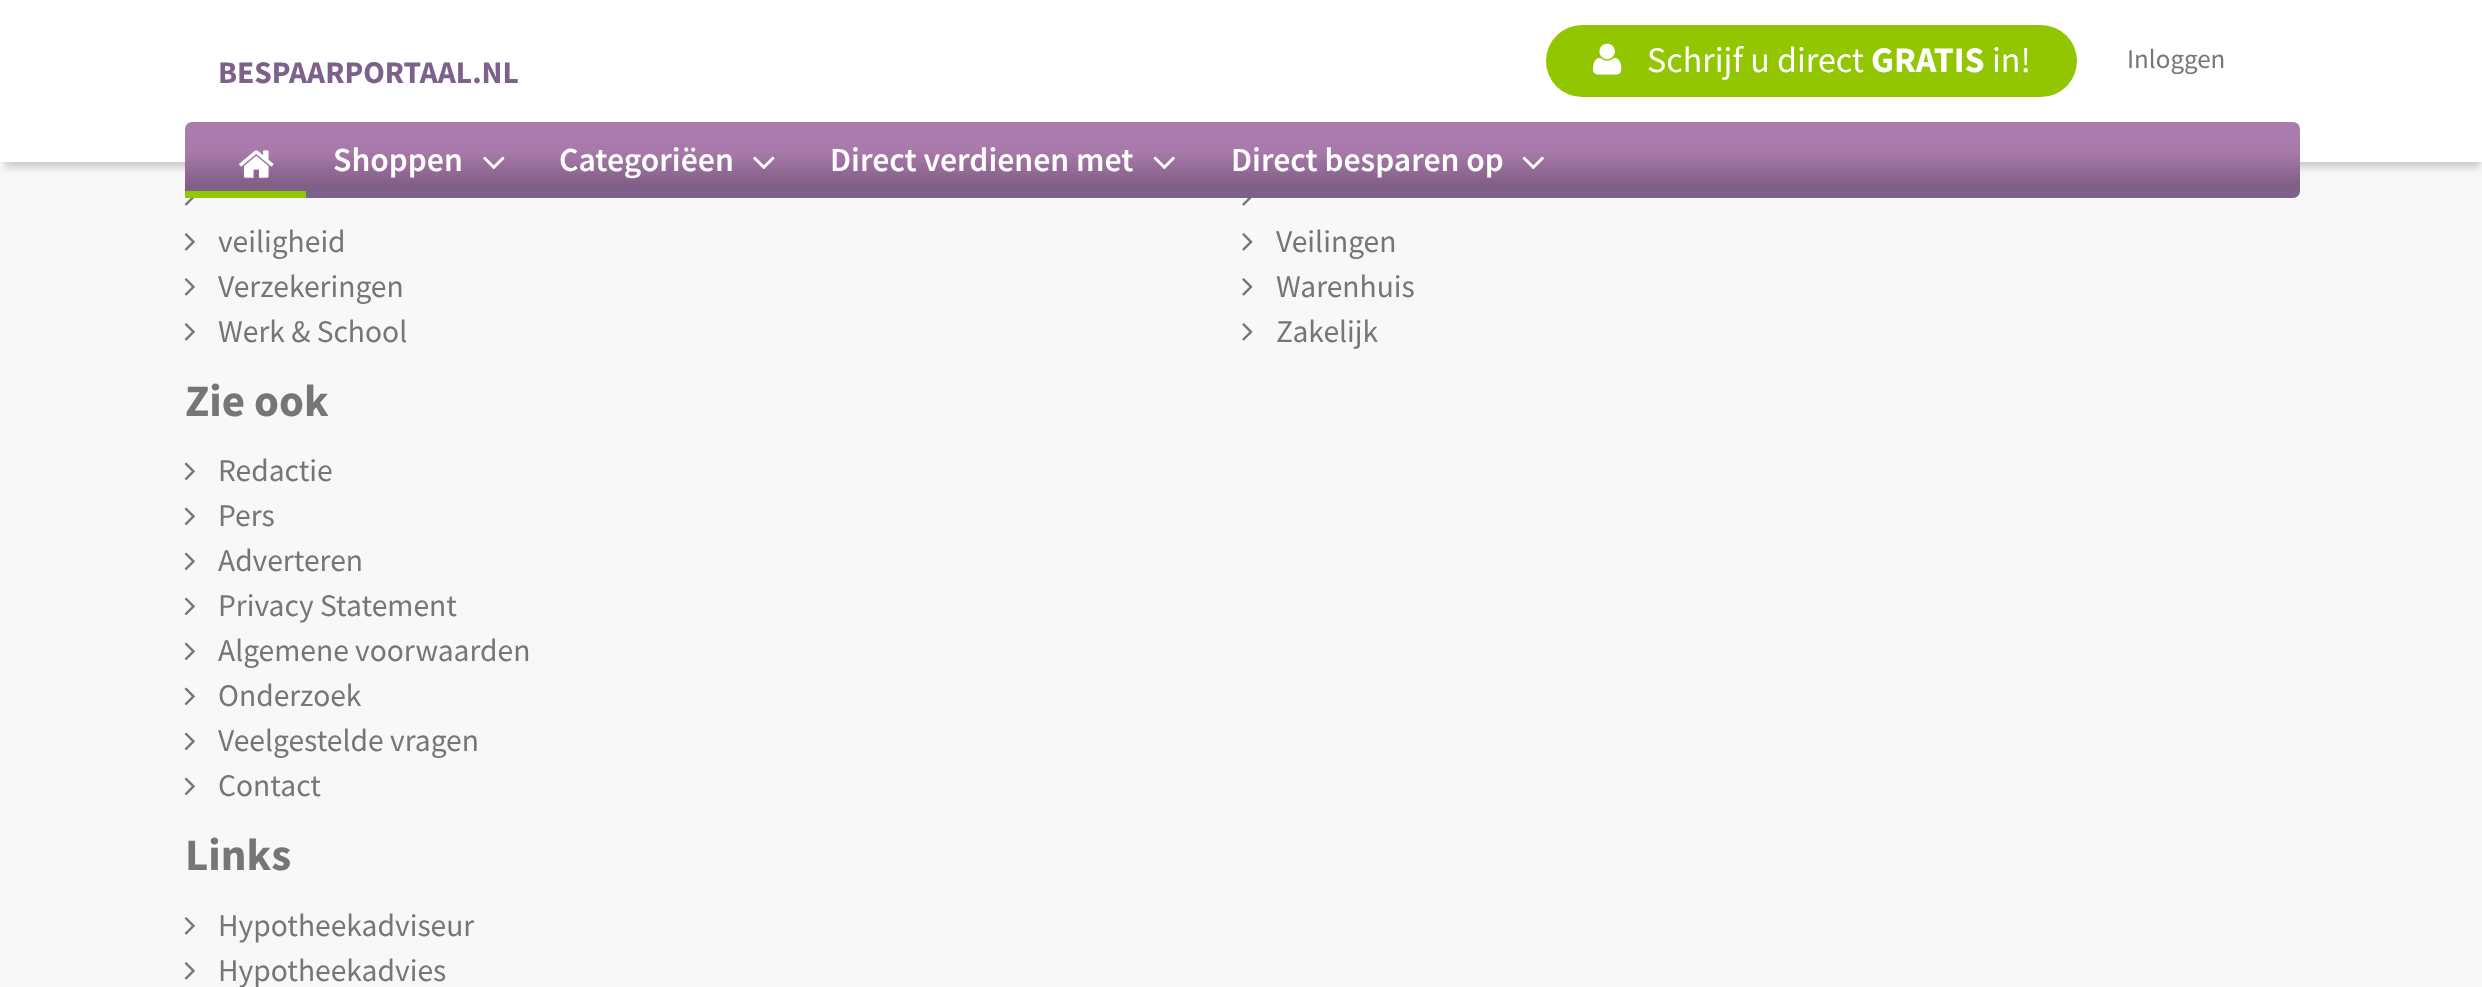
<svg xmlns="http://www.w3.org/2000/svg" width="2482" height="987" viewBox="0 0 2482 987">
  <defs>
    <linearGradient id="g1" gradientUnits="userSpaceOnUse" x1="1242" y1="121" x2="1242" y2="198"><stop offset="0" stop-color="#a97cad"/><stop offset="0.21" stop-color="#a97cad"/><stop offset="0.4" stop-color="#a879aa"/><stop offset="0.83" stop-color="#815f86"/><stop offset="1" stop-color="#7a638c"/></linearGradient>
    <clipPath id="clip1"><path d="M185 135h121v63H185z"/></clipPath>
  </defs>
  <rect width="100%" height="100%" fill="#f8f8f8"/>
  <path d="M5 14h2475v153H5z" fill="#00000033" filter="blur(4.5px)"/>
  <path d="M0 0h2482v162H0z" fill="#fff"/>
  <rect x="1546" y="25" width="531" height="72" rx="36" fill="#92c601"/>
  <image x="1593" y="43" width="29" height="32" href="img/1.png"/>
  <image x="184" y="189" width="10" height="17" href="img/5.png"/>
  <rect x="185" y="122" width="2115" height="76" rx="7" fill="url(#g1)"/>
  <g clip-path="url(#clip1)">
    <path d="M-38-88H529V421H-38ZM184 115H306C310 115 313 118 313 122V184C313 188 310 191 306 191H184C181 191 178 188 178 184V122C178 118 181 115 184 115Z" fill="#93c700" fill-rule="evenodd"/>
  </g>
  <image x="239" y="150" width="35" height="28" href="img/2.png"/>
  <image x="483" y="156" width="22" height="13" href="img/3.png"/>
  <image x="753" y="156" width="22" height="13" href="img/3.png"/>
  <image x="1153" y="156" width="22" height="13" href="img/4.png"/>
  <image x="1522" y="156" width="22" height="13" href="img/4.png"/>
  <image x="1242" y="198" width="10" height="8" href="img/6.png"/>
  <image x="184" y="233" width="11" height="18" href="img/7.png"/>
  <image x="1242" y="233" width="11" height="18" href="img/8.png"/>
  <image x="184" y="278" width="11" height="18" href="img/7.png"/>
  <image x="1242" y="278" width="11" height="18" href="img/8.png"/>
  <image x="184" y="323" width="11" height="18" href="img/7.png"/>
  <image x="1242" y="323" width="11" height="18" href="img/8.png"/>
  <image x="184" y="462" width="11" height="19" href="img/9.png"/>
  <image x="184" y="507" width="11" height="19" href="img/9.png"/>
  <image x="184" y="552" width="11" height="19" href="img/9.png"/>
  <image x="184" y="597" width="11" height="19" href="img/9.png"/>
  <image x="184" y="642" width="11" height="19" href="img/9.png"/>
  <image x="184" y="687" width="11" height="19" href="img/9.png"/>
  <image x="184" y="732" width="11" height="19" href="img/9.png"/>
  <image x="184" y="777" width="11" height="19" href="img/9.png"/>
  <image x="184" y="917" width="11" height="18" href="img/7.png"/>
  <image x="184" y="962" width="11" height="18" href="img/7.png"/>
  <text x="218" y="83" font-family="Source Sans Pro" font-size="31.5" font-weight="bold" fill="#7c618a">BESPAARPORTAAL.NL</text>
  <text x="1647" y="72" font-family="Source Sans Pro" font-size="36" fill="#fff">Schrijf u direct</text>
  <text x="1871" y="72" font-family="Source Sans Pro" font-size="36" font-weight="bold" fill="#fff">GRATIS</text>
  <text x="1992" y="72" font-family="Source Sans Pro" font-size="36" fill="#fff">in!</text>
  <text x="2127" y="68" font-family="Source Sans Pro" font-size="27" fill="#767676">Inloggen</text>
  <g font-family="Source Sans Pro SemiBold" font-size="33.75" font-weight="600" fill="#fff">
    <text x="333" y="171">Shoppen</text>
    <text x="559" y="171">Categoriëen</text>
    <text x="830" y="171">Direct verdienen met</text>
    <text x="1231" y="171">Direct besparen op</text>
  </g>
  <g font-family="Source Sans Pro" font-size="31.5" fill="#767676">
    <text x="218" y="252">veiligheid</text>
    <text x="1276" y="252">Veilingen</text>
    <text x="218" y="297">Verzekeringen</text>
    <text x="1276" y="297">Warenhuis</text>
    <text x="218" y="342">Werk &amp; School</text>
    <text x="1276" y="342">Zakelijk</text>
  </g>
  <text x="185" y="416" font-family="Source Sans Pro" font-size="45" font-weight="bold" fill="#767676">Zie ook</text>
  <g font-family="Source Sans Pro" font-size="31.5" fill="#767676">
    <text x="218" y="481">Redactie</text>
    <text x="218" y="526">Pers</text>
    <text x="218" y="571">Adverteren</text>
    <text x="218" y="616">Privacy Statement</text>
    <text x="218" y="661">Algemene voorwaarden</text>
    <text x="218" y="706">Onderzoek</text>
    <text x="218" y="751">Veelgestelde vragen</text>
    <text x="218" y="796">Contact</text>
  </g>
  <text x="185" y="870" font-family="Source Sans Pro" font-size="45" font-weight="bold" fill="#767676">Links</text>
  <g font-family="Source Sans Pro" font-size="31.5" fill="#767676">
    <text x="218" y="936">Hypotheekadviseur</text>
    <text x="218" y="981">Hypotheekadvies</text>
  </g>
</svg>
